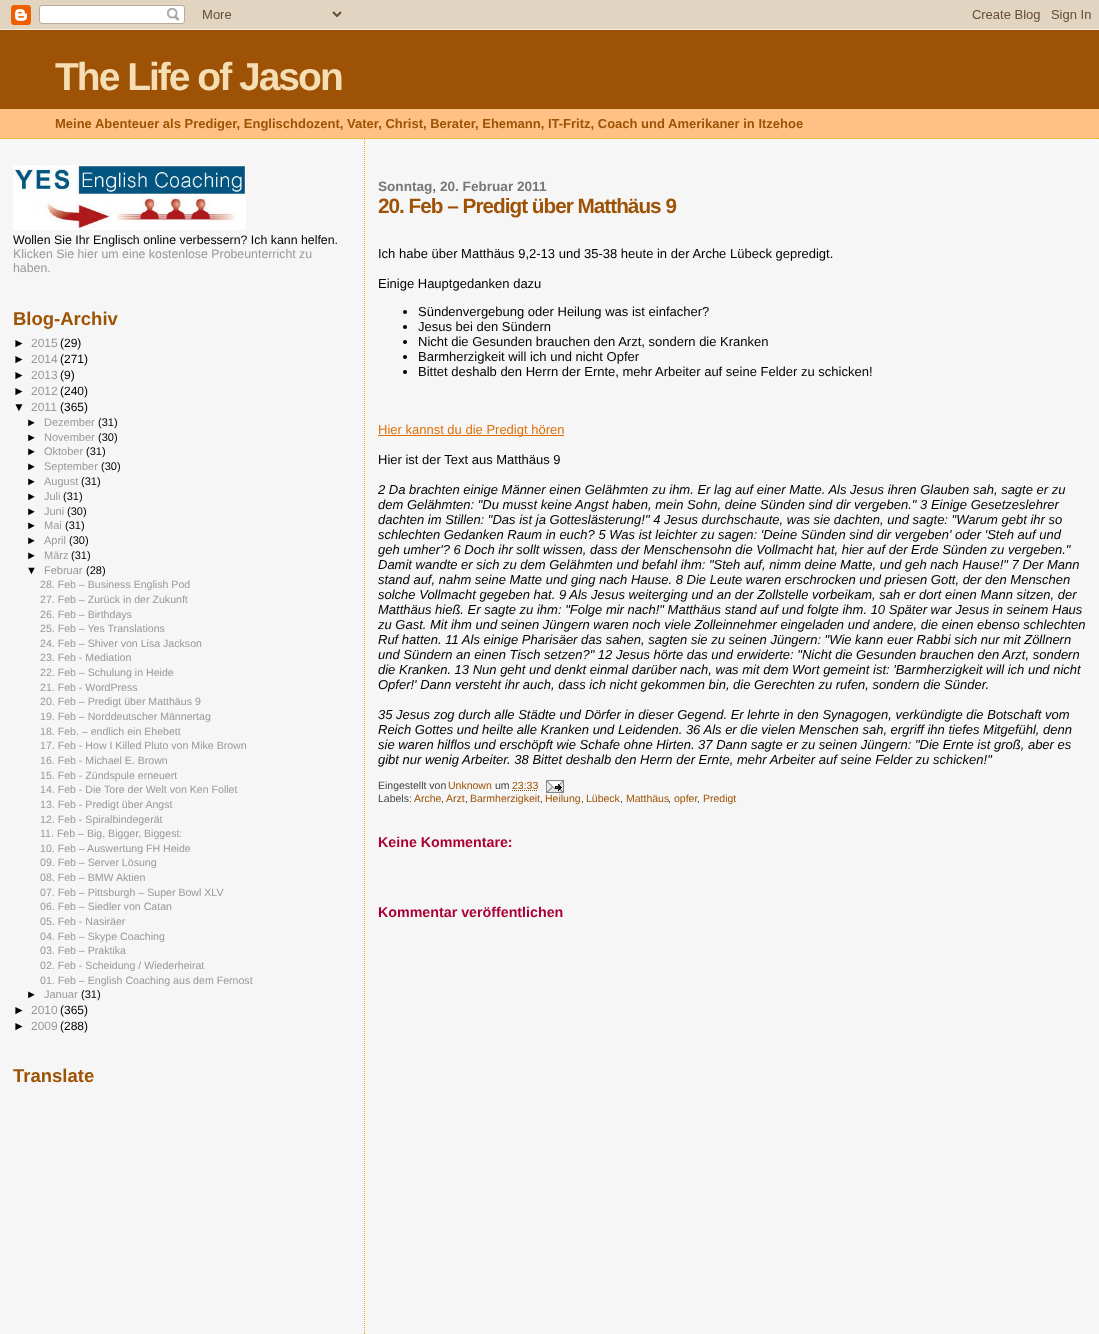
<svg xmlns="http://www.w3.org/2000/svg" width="1099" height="1334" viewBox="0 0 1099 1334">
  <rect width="100%" height="100%" fill="#f6f6f6"/>
  <image x="0" y="0" width="1099" height="30" href="img/1.png"/>
  <path d="M0 109h1099v30H0z" fill="#ffc284"/>
  <path d="M0 138.5H1099" fill="none" stroke="#e0ad12" stroke-dasharray="1 1"/>
  <path d="M0 30h1099v79H0z" fill="#9e5205"/>
  <image x="13" y="165" width="233" height="65" href="img/2.png"/>
  <path d="M364.5 139V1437" fill="none" stroke="#e0ad12" stroke-dasharray="1 1"/>
  <circle cx="405" cy="312" r="2" fill="#000"/>
  <circle cx="405" cy="327" r="2" fill="#000"/>
  <circle cx="405" cy="342" r="2" fill="#000"/>
  <circle cx="405" cy="357" r="2" fill="#000"/>
  <circle cx="405" cy="372" r="2" fill="#000"/>
  <path d="M378 435h186v1H378z" fill="#de7008"/>
  <path d="M512 790.5H538" fill="none" stroke="#9e5205" stroke-dasharray="1 1"/>
  <image x="546" y="780" width="18" height="13" href="img/3.png"/>
  <text x="55" y="90" font-family="Liberation Sans" font-size="39" font-weight="bold" letter-spacing="-2" fill="#f5deb3">The Life of Jason</text>
  <text x="55" y="128" font-family="Liberation Sans" font-size="13" font-weight="bold" fill="#9e5205">Meine Abenteuer als Prediger, Englischdozent, Vater, Christ, Berater, Ehemann, IT-Fritz, Coach und Amerikaner in Itzehoe</text>
  <text x="13" y="244" font-family="Liberation Sans" font-size="12.35" fill="#000">Wollen Sie Ihr Englisch online verbessern? Ich kann helfen.</text>
  <g font-family="Liberation Sans" font-size="12.35" fill="#999">
    <text x="13" y="258">Klicken Sie hier um eine kostenlose Probeunterricht zu</text>
    <text x="13" y="272">haben.</text>
  </g>
  <text x="13" y="325" font-family="Liberation Sans" font-size="18.5" font-weight="bold" fill="#9e5205">Blog-Archiv</text>
  <text x="13" y="347" font-family="Liberation Sans" font-size="12" fill="#000">►</text>
  <text x="31" y="347" font-family="Liberation Sans" font-size="12" fill="#999">2015</text>
  <g font-family="Liberation Sans" font-size="12" fill="#000">
    <text x="60" y="347">(29)</text>
    <text x="13" y="363">►</text>
  </g>
  <text x="31" y="363" font-family="Liberation Sans" font-size="12" fill="#999">2014</text>
  <g font-family="Liberation Sans" font-size="12" fill="#000">
    <text x="60" y="363">(271)</text>
    <text x="13" y="379">►</text>
  </g>
  <text x="31" y="379" font-family="Liberation Sans" font-size="12" fill="#999">2013</text>
  <g font-family="Liberation Sans" font-size="12" fill="#000">
    <text x="60" y="379">(9)</text>
    <text x="13" y="395">►</text>
  </g>
  <text x="31" y="395" font-family="Liberation Sans" font-size="12" fill="#999">2012</text>
  <g font-family="Liberation Sans" font-size="12" fill="#000">
    <text x="60" y="395">(240)</text>
    <text x="13" y="411">▼</text>
  </g>
  <text x="31" y="411" font-family="Liberation Sans" font-size="12" fill="#999">2011</text>
  <text x="60" y="411" font-family="Liberation Sans" font-size="12" fill="#000">(365)</text>
  <text x="26" y="426" font-family="Liberation Sans" font-size="11" fill="#000">►</text>
  <text x="44" y="426" font-family="Liberation Sans" font-size="11" fill="#999">Dezember</text>
  <g font-family="Liberation Sans" font-size="11" fill="#000">
    <text x="98" y="426">(31)</text>
    <text x="26" y="441">►</text>
  </g>
  <text x="44" y="441" font-family="Liberation Sans" font-size="11" fill="#999">November</text>
  <g font-family="Liberation Sans" font-size="11" fill="#000">
    <text x="98" y="441">(30)</text>
    <text x="26" y="455">►</text>
  </g>
  <text x="44" y="455" font-family="Liberation Sans" font-size="11" fill="#999">Oktober</text>
  <g font-family="Liberation Sans" font-size="11" fill="#000">
    <text x="86" y="455">(31)</text>
    <text x="26" y="470">►</text>
  </g>
  <text x="44" y="470" font-family="Liberation Sans" font-size="11" fill="#999">September</text>
  <g font-family="Liberation Sans" font-size="11" fill="#000">
    <text x="101" y="470">(30)</text>
    <text x="26" y="485">►</text>
  </g>
  <text x="44" y="485" font-family="Liberation Sans" font-size="11" fill="#999">August</text>
  <g font-family="Liberation Sans" font-size="11" fill="#000">
    <text x="81" y="485">(31)</text>
    <text x="26" y="500">►</text>
  </g>
  <text x="44" y="500" font-family="Liberation Sans" font-size="11" fill="#999">Juli</text>
  <g font-family="Liberation Sans" font-size="11" fill="#000">
    <text x="63" y="500">(31)</text>
    <text x="26" y="515">►</text>
  </g>
  <text x="44" y="515" font-family="Liberation Sans" font-size="11" fill="#999">Juni</text>
  <g font-family="Liberation Sans" font-size="11" fill="#000">
    <text x="67" y="515">(30)</text>
    <text x="26" y="529">►</text>
  </g>
  <text x="44" y="529" font-family="Liberation Sans" font-size="11" fill="#999">Mai</text>
  <g font-family="Liberation Sans" font-size="11" fill="#000">
    <text x="65" y="529">(31)</text>
    <text x="26" y="544">►</text>
  </g>
  <text x="44" y="544" font-family="Liberation Sans" font-size="11" fill="#999">April</text>
  <g font-family="Liberation Sans" font-size="11" fill="#000">
    <text x="69" y="544">(30)</text>
    <text x="26" y="559">►</text>
  </g>
  <text x="44" y="559" font-family="Liberation Sans" font-size="11" fill="#999">März</text>
  <g font-family="Liberation Sans" font-size="11" fill="#000">
    <text x="71" y="559">(31)</text>
    <text x="26" y="574">▼</text>
  </g>
  <text x="44" y="574" font-family="Liberation Sans" font-size="11" fill="#999">Februar</text>
  <text x="86" y="574" font-family="Liberation Sans" font-size="11" fill="#000">(28)</text>
  <g font-family="Liberation Sans" font-size="10.6" fill="#999">
    <text x="40" y="588">28. Feb – Business English Pod</text>
    <text x="40" y="603">27. Feb – Zurück in der Zukunft</text>
    <text x="40" y="618">26. Feb – Birthdays</text>
    <text x="40" y="632">25. Feb – Yes Translations</text>
    <text x="40" y="647">24. Feb – Shiver von Lisa Jackson</text>
    <text x="40" y="661">23. Feb - Mediation</text>
    <text x="40" y="676">22. Feb – Schulung in Heide</text>
    <text x="40" y="691">21. Feb - WordPress</text>
    <text x="40" y="705">20. Feb – Predigt über Matthäus 9</text>
    <text x="40" y="720">19. Feb – Norddeutscher Männertag</text>
    <text x="40" y="735">18. Feb. – endlich ein Ehebett</text>
    <text x="40" y="749">17. Feb - How I Killed Pluto von Mike Brown</text>
    <text x="40" y="764">16. Feb - Michael E. Brown</text>
    <text x="40" y="779">15. Feb - Zündspule erneuert</text>
    <text x="40" y="793">14. Feb - Die Tore der Welt von Ken Follet</text>
    <text x="40" y="808">13. Feb - Predigt über Angst</text>
    <text x="40" y="823">12. Feb - Spiralbindegerät</text>
    <text x="40" y="837">11. Feb – Big, Bigger, Biggest:</text>
    <text x="40" y="852">10. Feb – Auswertung FH Heide</text>
    <text x="40" y="866">09. Feb – Server Lösung</text>
    <text x="40" y="881">08. Feb – BMW Aktien</text>
    <text x="40" y="896">07. Feb – Pittsburgh – Super Bowl XLV</text>
    <text x="40" y="910">06. Feb – Siedler von Catan</text>
    <text x="40" y="925">05. Feb - Nasiräer</text>
    <text x="40" y="940">04. Feb – Skype Coaching</text>
    <text x="40" y="954">03. Feb – Praktika</text>
    <text x="40" y="969">02. Feb - Scheidung / Wiederheirat</text>
    <text x="40" y="984">01. Feb – English Coaching aus dem Fernost</text>
  </g>
  <text x="26" y="998" font-family="Liberation Sans" font-size="11" fill="#000">►</text>
  <text x="44" y="998" font-family="Liberation Sans" font-size="11" fill="#999">Januar</text>
  <text x="81" y="998" font-family="Liberation Sans" font-size="11" fill="#000">(31)</text>
  <text x="13" y="1014" font-family="Liberation Sans" font-size="12" fill="#000">►</text>
  <text x="31" y="1014" font-family="Liberation Sans" font-size="12" fill="#999">2010</text>
  <g font-family="Liberation Sans" font-size="12" fill="#000">
    <text x="60" y="1014">(365)</text>
    <text x="13" y="1030">►</text>
  </g>
  <text x="31" y="1030" font-family="Liberation Sans" font-size="12" fill="#999">2009</text>
  <text x="60" y="1030" font-family="Liberation Sans" font-size="12" fill="#000">(288)</text>
  <text x="13" y="1082" font-family="Liberation Sans" font-size="18.5" font-weight="bold" fill="#9e5205">Translate</text>
  <text x="378" y="191" font-family="Liberation Sans" font-size="13.6" font-weight="bold" fill="#777">Sonntag, 20. Februar 2011</text>
  <text x="378" y="213" font-family="Liberation Sans" font-size="20.75" font-weight="bold" letter-spacing="-1" fill="#9e5205">20. Feb – Predigt über Matthäus 9</text>
  <g font-family="Liberation Sans" font-size="13" fill="#000">
    <text x="378" y="258">Ich habe über Matthäus 9,2-13 und 35-38 heute in der Arche Lübeck gepredigt.</text>
    <text x="378" y="288">Einige Hauptgedanken dazu</text>
    <text x="418" y="316">Sündenvergebung oder Heilung was ist einfacher?</text>
    <text x="418" y="331">Jesus bei den Sündern</text>
    <text x="418" y="346">Nicht die Gesunden brauchen den Arzt, sondern die Kranken</text>
    <text x="418" y="361">Barmherzigkeit will ich und nicht Opfer</text>
    <text x="418" y="376">Bittet deshalb den Herrn der Ernte, mehr Arbeiter auf seine Felder zu schicken!</text>
  </g>
  <text x="378" y="434" font-family="Liberation Sans" font-size="13" fill="#de7008">Hier kannst du die Predigt hören</text>
  <text x="378" y="464" font-family="Liberation Sans" font-size="13" fill="#000">Hier ist der Text aus Matthäus 9</text>
  <g font-family="Liberation Sans" font-size="13" font-style="italic" fill="#000">
    <text x="378" y="494">2 Da brachten einige Männer einen Gelähmten zu ihm. Er lag auf einer Matte. Als Jesus ihren Glauben sah, sagte er zu</text>
    <text x="378" y="509">dem Gelähmten: "Du musst keine Angst haben, mein Sohn, deine Sünden sind dir vergeben." 3 Einige Gesetzeslehrer</text>
    <text x="378" y="524">dachten im Stillen: "Das ist ja Gotteslästerung!" 4 Jesus durchschaute, was sie dachten, und sagte: "Warum gebt ihr so</text>
    <text x="378" y="539">schlechten Gedanken Raum in euch? 5 Was ist leichter zu sagen: 'Deine Sünden sind dir vergeben' oder 'Steh auf und</text>
    <text x="378" y="554">geh umher'? 6 Doch ihr sollt wissen, dass der Menschensohn die Vollmacht hat, hier auf der Erde Sünden zu vergeben."</text>
    <text x="378" y="569">Damit wandte er sich zu dem Gelähmten und befahl ihm: "Steh auf, nimm deine Matte, und geh nach Hause!" 7 Der Mann</text>
    <text x="378" y="584">stand auf, nahm seine Matte und ging nach Hause. 8 Die Leute waren erschrocken und priesen Gott, der den Menschen</text>
    <text x="378" y="599">solche Vollmacht gegeben hat. 9 Als Jesus weiterging und an der Zollstelle vorbeikam, sah er dort einen Mann sitzen, der</text>
    <text x="378" y="614">Matthäus hieß. Er sagte zu ihm: "Folge mir nach!" Matthäus stand auf und folgte ihm. 10 Später war Jesus in seinem Haus</text>
    <text x="378" y="629">zu Gast. Mit ihm und seinen Jüngern waren noch viele Zolleinnehmer eingeladen und andere, die einen ebenso schlechten</text>
    <text x="378" y="644">Ruf hatten. 11 Als einige Pharisäer das sahen, sagten sie zu seinen Jüngern: "Wie kann euer Rabbi sich nur mit Zöllnern</text>
    <text x="378" y="659">und Sündern an einen Tisch setzen?" 12 Jesus hörte das und erwiderte: "Nicht die Gesunden brauchen den Arzt, sondern</text>
    <text x="378" y="674">die Kranken. 13 Nun geht und denkt einmal darüber nach, was mit dem Wort gemeint ist: 'Barmherzigkeit will ich und nicht</text>
    <text x="378" y="689">Opfer!' Dann versteht ihr auch, dass ich nicht gekommen bin, die Gerechten zu rufen, sondern die Sünder.</text>
    <text x="378" y="719">35 Jesus zog durch alle Städte und Dörfer in dieser Gegend. Er lehrte in den Synagogen, verkündigte die Botschaft vom</text>
    <text x="378" y="734">Reich Gottes und heilte alle Kranken und Leidenden. 36 Als er die vielen Menschen sah, ergriff ihn tiefes Mitgefühl, denn</text>
    <text x="378" y="749">sie waren hilflos und erschöpft wie Schafe ohne Hirten. 37 Dann sagte er zu seinen Jüngern: "Die Ernte ist groß, aber es</text>
    <text x="378" y="764">gibt nur wenig Arbeiter. 38 Bittet deshalb den Herrn der Ernte, mehr Arbeiter auf seine Felder zu schicken!"</text>
  </g>
  <text x="378" y="789" font-family="Liberation Sans" font-size="10.5" fill="#444">Eingestellt von</text>
  <text x="448" y="789" font-family="Liberation Sans" font-size="10.5" fill="#9e5205">Unknown</text>
  <text x="495" y="789" font-family="Liberation Sans" font-size="10.5" fill="#444">um</text>
  <text x="512" y="789" font-family="Liberation Sans" font-size="10.5" fill="#9e5205">23:33</text>
  <text x="378" y="802" font-family="Liberation Sans" font-size="10.5" fill="#444">Labels:</text>
  <text x="414" y="802" font-family="Liberation Sans" font-size="10.5" fill="#9e5205">Arche</text>
  <text x="441" y="802" font-family="Liberation Sans" font-size="10.5" fill="#444">,</text>
  <text x="446" y="802" font-family="Liberation Sans" font-size="10.5" fill="#9e5205">Arzt</text>
  <text x="465" y="802" font-family="Liberation Sans" font-size="10.5" fill="#444">,</text>
  <text x="470" y="802" font-family="Liberation Sans" font-size="10.5" fill="#9e5205">Barmherzigkeit</text>
  <text x="540" y="802" font-family="Liberation Sans" font-size="10.5" fill="#444">,</text>
  <text x="545" y="802" font-family="Liberation Sans" font-size="10.5" fill="#9e5205">Heilung</text>
  <text x="581" y="802" font-family="Liberation Sans" font-size="10.5" fill="#444">,</text>
  <text x="586" y="802" font-family="Liberation Sans" font-size="10.5" fill="#9e5205">Lübeck</text>
  <text x="620" y="802" font-family="Liberation Sans" font-size="10.5" fill="#444">,</text>
  <text x="626" y="802" font-family="Liberation Sans" font-size="10.5" fill="#9e5205">Matthäus</text>
  <text x="668" y="802" font-family="Liberation Sans" font-size="10.5" fill="#444">,</text>
  <text x="674" y="802" font-family="Liberation Sans" font-size="10.5" fill="#9e5205">opfer</text>
  <text x="697" y="802" font-family="Liberation Sans" font-size="10.5" fill="#444">,</text>
  <text x="703" y="802" font-family="Liberation Sans" font-size="10.5" fill="#9e5205">Predigt</text>
  <g font-family="Liberation Sans" font-size="14.25" font-weight="bold" fill="#a03">
    <text x="378" y="847">Keine Kommentare:</text>
    <text x="378" y="917">Kommentar veröffentlichen</text>
  </g>
</svg>
